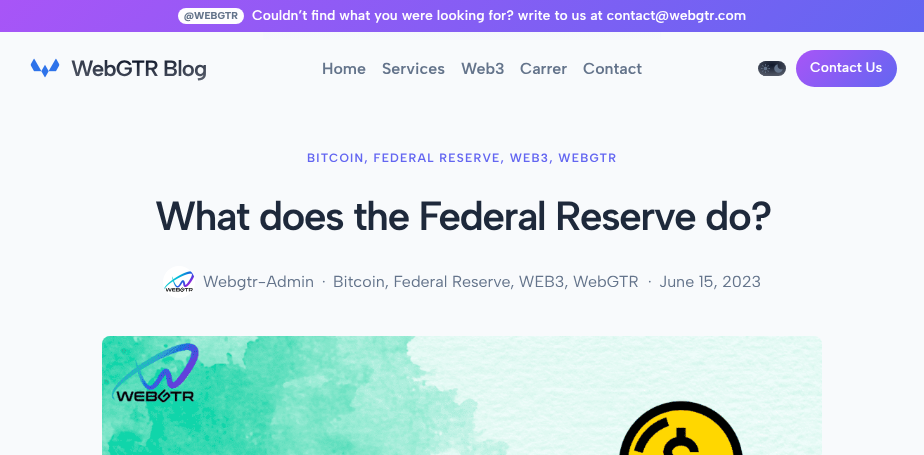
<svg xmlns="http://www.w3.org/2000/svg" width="924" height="455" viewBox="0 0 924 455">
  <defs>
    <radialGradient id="g1" gradientUnits="userSpaceOnUse" cx="0" cy="0" r="1" gradientTransform="matrix(337 0 0 74 139 61)"><stop offset="0" stop-color="#0f172a"/><stop offset="1" stop-color="#f8fafc"/></radialGradient>
    <radialGradient id="g2" gradientUnits="userSpaceOnUse" cx="0" cy="0" r="1" gradientTransform="matrix(693 0 0 158 462 -105)"><stop offset="0.2" stop-color="#e0e7ff"/><stop offset="1" stop-color="#f8fafc"/></radialGradient>
    <linearGradient id="g3" gradientUnits="userSpaceOnUse" x1="223" y1="-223" x2="701" y2="255"><stop offset="0" stop-color="#a855f7"/><stop offset="1" stop-color="#6366f1"/></linearGradient>
    <radialGradient id="g4" gradientUnits="userSpaceOnUse" cx="0" cy="0" r="1" gradientTransform="matrix(70 0 0 38 772 65)"><stop offset="0" stop-color="#0f172a"/><stop offset="1" stop-color="#f8fafc"/></radialGradient>
    <linearGradient id="g5" gradientUnits="userSpaceOnUse" x1="812" y1="34" x2="881" y2="103"><stop offset="0" stop-color="#a855f7"/><stop offset="1" stop-color="#6366f1"/></linearGradient>
  </defs>
  <rect width="100%" height="100%" fill="#f8fafc"/>
  <path d="M263 32h398v8H263z" fill="url(#g2)"/>
  <path d="M0 0h924v32H0z" fill="url(#g3)"/>
  <rect x="178" y="8" width="66" height="16" rx="8" fill="#fffffffc"/>
  <image x="30" y="58" width="30" height="20" href="img/1.png"/>
  <rect x="758" y="61" width="28" height="15" rx="7.5" fill="url(#g4)"/>
  <image x="761" y="64" width="9" height="9" href="img/2.png"/>
  <image x="774" y="64" width="9" height="9" href="img/3.png"/>
  <rect x="796" y="50" width="101" height="37" rx="18.5" fill="url(#g5)"/>
  <image x="163" y="266" width="32" height="32" href="img/4.png"/>
  <image x="102" y="336" width="720" height="119" href="img/5.png"/>
  <text x="184" y="19" font-family="Albert Sans" font-size="10" font-weight="800" fill="#64748b">@WEBGTR</text>
  <text x="252" y="20" font-family="Albert Sans" font-size="14" font-weight="600" fill="#fefdff">Couldn’t find what you were looking for? write to us at contact@webgtr.com</text>
  <text x="71" y="76" font-family="Albert Sans" font-size="22.25" font-weight="600" letter-spacing="-0.9" fill="url(#g1)">WebGTR Blog</text>
  <g font-family="Albert Sans" font-size="16" font-weight="600" fill="#64748b">
    <text x="322" y="74">Home</text>
    <text x="382" y="74">Services</text>
    <text x="461" y="74">Web3</text>
    <text x="520" y="74">Carrer</text>
    <text x="583" y="74">Contact</text>
  </g>
  <text x="810" y="72" font-family="Albert Sans" font-size="14" font-weight="600" fill="#fefdff">Contact Us</text>
  <text x="307" y="162" font-family="Albert Sans" font-size="12" font-weight="600" letter-spacing="1.2" fill="#6366f1">BITCOIN, FEDERAL RESERVE, WEB3, WEBGTR</text>
  <text x="155" y="230" font-family="Albert Sans" font-size="40.7" font-weight="600" letter-spacing="-1.6" fill="#1e293b">What does the Federal Reserve do?</text>
  <g font-family="Albert Sans" font-size="16" fill="#64748b">
    <text x="203" y="287">Webgtr-Admin</text>
    <text x="322" y="287">·</text>
    <text x="333" y="287">Bitcoin, Federal Reserve, WEB3, WebGTR</text>
    <text x="648" y="287">·</text>
    <text x="659" y="287">June 15, 2023</text>
  </g>
</svg>
